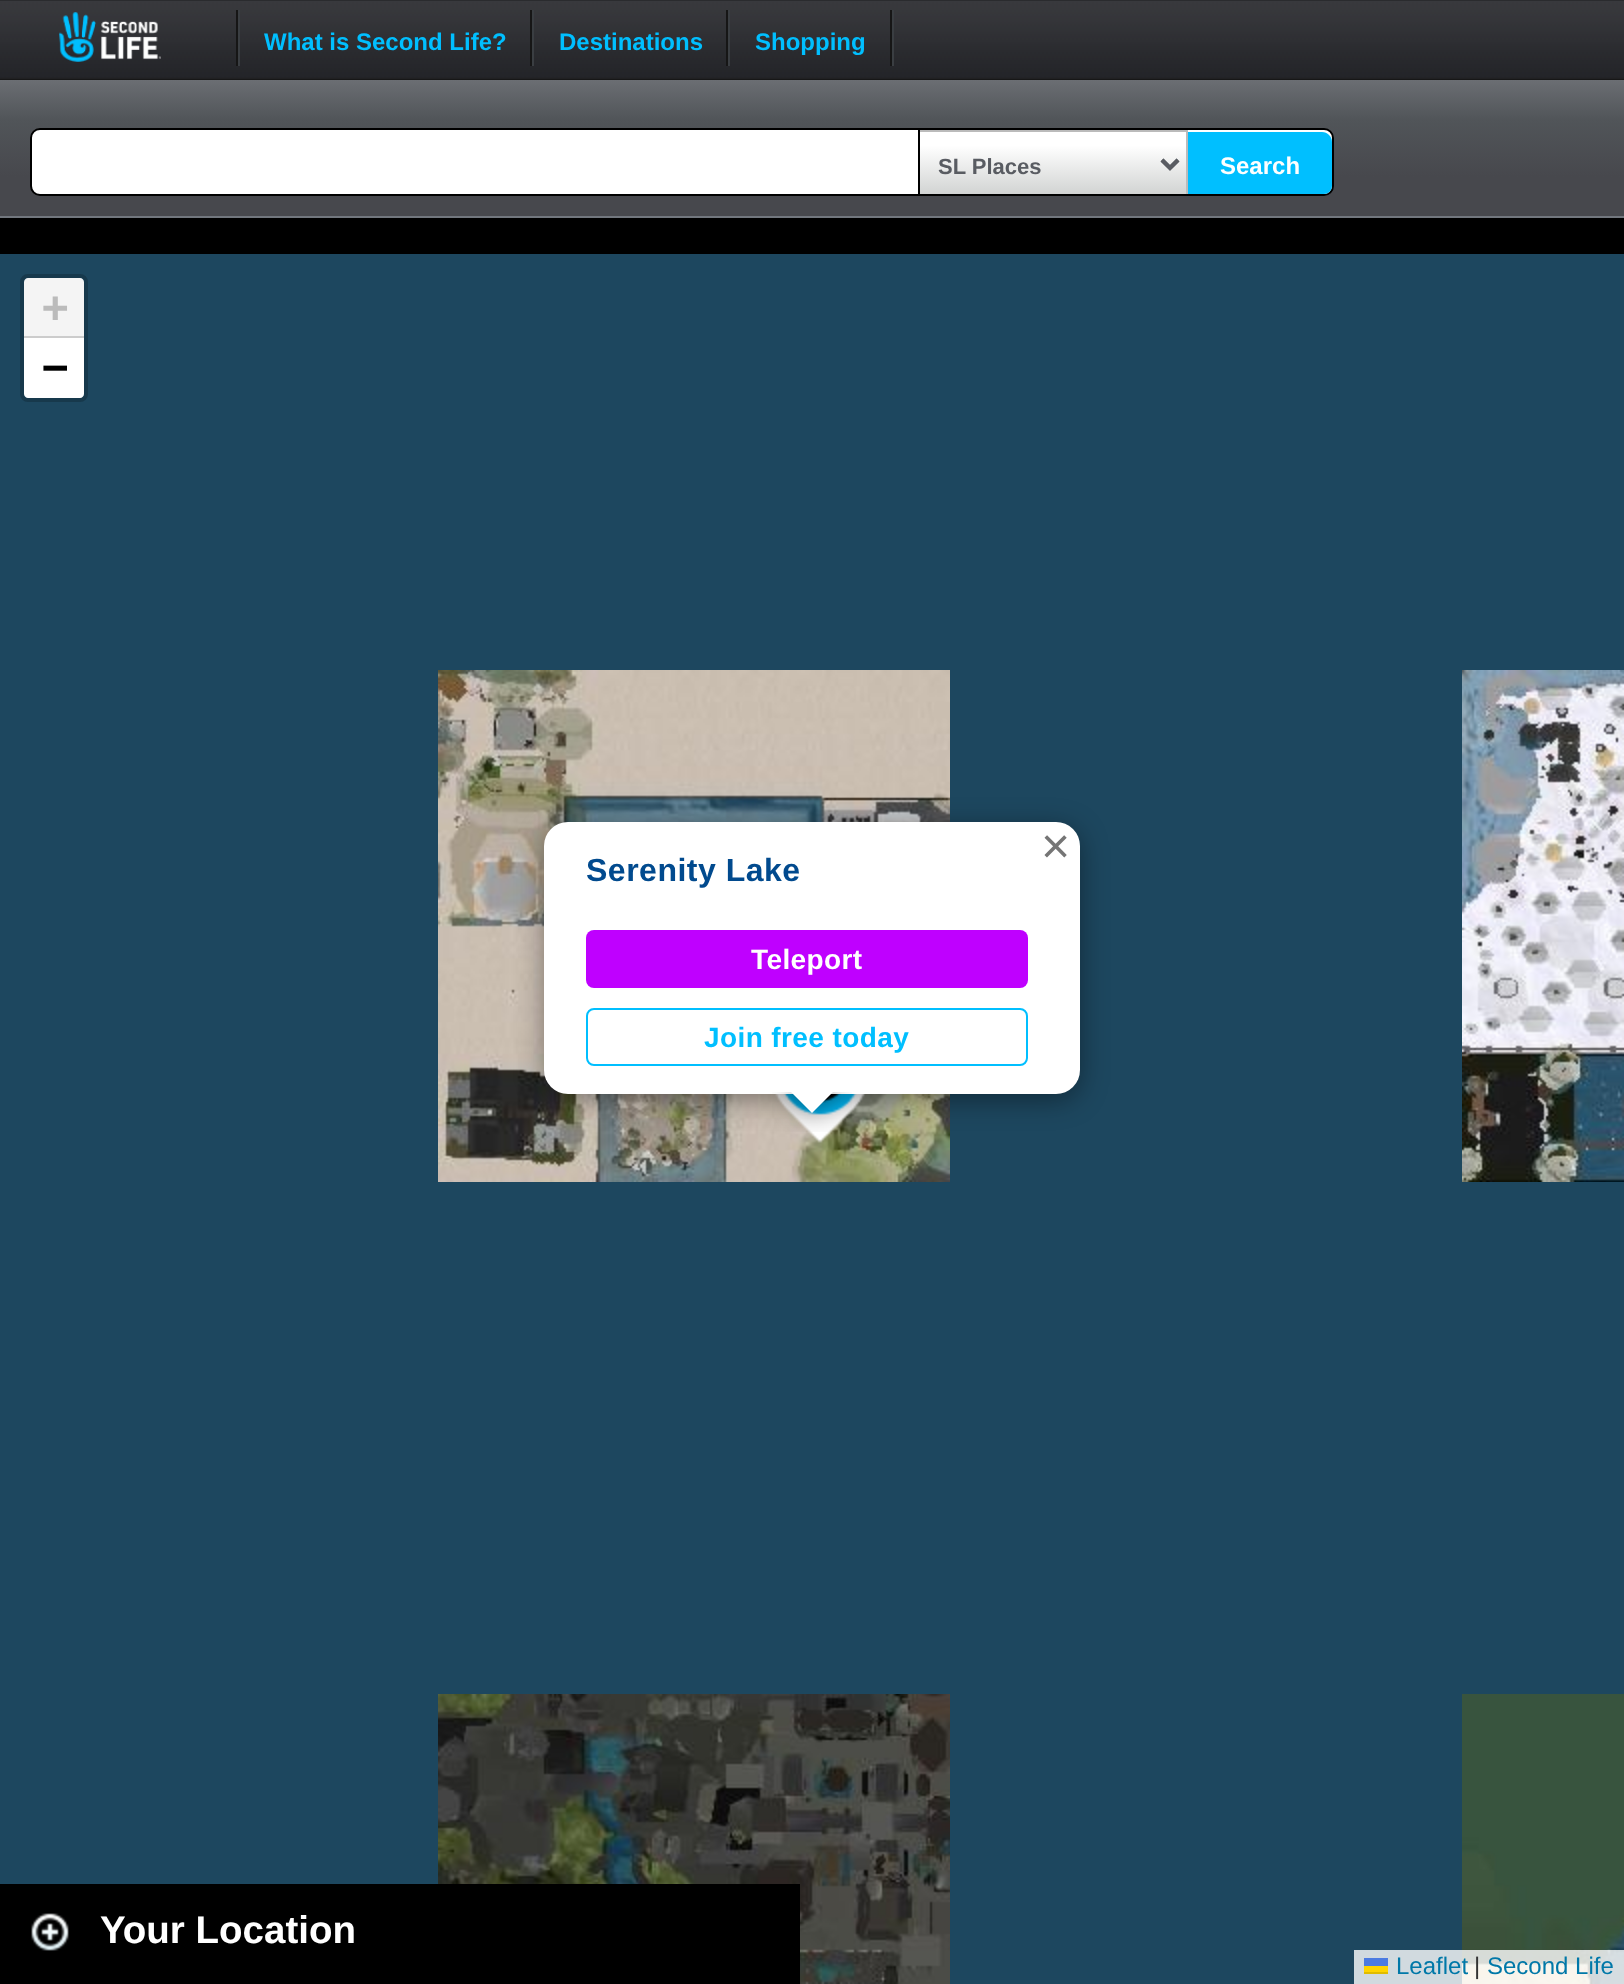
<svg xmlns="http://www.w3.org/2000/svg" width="1624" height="1984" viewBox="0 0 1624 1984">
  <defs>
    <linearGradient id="g1" gradientUnits="userSpaceOnUse" x1="0" y1="216" x2="0" y2="80"><stop offset="0.29" stop-color="#47484d"/><stop offset="0.71" stop-color="#515559"/><stop offset="1" stop-color="#6b6e73"/></linearGradient>
    <clipPath id="clip1"><rect x="32" y="130" width="1300" height="64" rx="8"/></clipPath>
    <clipPath id="clip2"><path d="M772 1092h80v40H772z"/></clipPath>
    <clipPath id="clip3"><path d="M772 1092h80v40H772z"/></clipPath>
  </defs>
  <rect width="100%" height="100%" fill="#000"/>
  <image x="0" y="0" width="1624" height="80" href="img/1.png"/>
  <image x="59" y="12" width="102" height="50" href="img/2.png"/>
  <path d="M238 10h2v56H238z" fill="#3a3e42"/>
  <path d="M236 10h2v56H236z" fill="#161616"/>
  <path d="M532 10h2v56H532z" fill="#3a3e42"/>
  <path d="M530 10h2v56H530z" fill="#161616"/>
  <path d="M728 10h2v56H728z" fill="#3a3e42"/>
  <path d="M726 10h2v56H726z" fill="#161616"/>
  <path d="M892 10h2v56H892z" fill="#3a3e42"/>
  <path d="M890 10h2v56H890z" fill="#161616"/>
  <path d="M0 80h1624v136H0z" fill="url(#g1)"/>
  <path d="M0 216h1624v2H0z" fill="#72777e"/>
  <rect x="31" y="129" width="1302" height="66" rx="9" fill="#fff" stroke="#000" stroke-width="2"/>
  <image x="920" y="132" width="266" height="62" href="img/3.png"/>
  <path d="M918 130h270v2H918z" fill="#bbb"/>
  <path d="M1186 130h2v64H1186z" fill="#bbb"/>
  <path d="M918 130h2v64H918z" fill="#000"/>
  <path d="M1162 160L1170 168L1178 160" fill="none" stroke="#595c62" stroke-width="4"/>
  <g clip-path="url(#clip1)">
    <path d="M1188 132H1322C1327.5 132 1332 136.5 1332 142V190C1332 195.5 1327.5 200 1322 200H1188Z" fill="#00bfff"/>
  </g>
  <path d="M0 254h1624v1730H0z" fill="#1d475f"/>
  <rect x="22" y="276" width="64" height="124" rx="6" fill="none" stroke="#17394c" stroke-width="4"/>
  <path d="M28 278H80C82 278 84 280 84 282V338H24V282C24 280 26 278 28 278Z" fill="#f4f4f4"/>
  <path d="M24 336h60v2H24z" fill="#ccc"/>
  <path d="M24 338H84V394C84 396 82 398 80 398H28C26 398 24 396 24 394Z" fill="#fff"/>
  <image x="1462" y="1694" width="162" height="290" href="img/7.png"/>
  <path d="M1354 1950h270v34H1354z" fill="#ffffffcc"/>
  <path d="M1364 1958h24v8H1364z" fill="#4c7be1"/>
  <path d="M1364 1966h24v6H1364z" fill="#ffd500"/>
  <path d="M1364 1972h24v2H1364z" fill="#e0bc00"/>
  <image x="438" y="670" width="512" height="512" href="img/4.png"/>
  <image x="1462" y="670" width="162" height="512" href="img/5.png"/>
  <image x="438" y="1694" width="512" height="290" href="img/6.png"/>
  <image x="775" y="1094" width="91" height="49" href="img/8.png"/>
  <rect x="544" y="828" width="536" height="272" rx="24" fill="#00000066" filter="blur(14px)"/>
  <rect x="544" y="822" width="536" height="272" rx="24" fill="#fff"/>
  <rect x="586" y="930" width="442" height="58" rx="8" fill="#bf00ff"/>
  <rect x="587" y="1009" width="440" height="56" rx="7" fill="none" stroke="#00bfff" stroke-width="2"/>
  <g clip-path="url(#clip2)">
    <path d="M796 1078h34v34H796z" fill="#00000066" filter="blur(14px)"/>
  </g>
  <g clip-path="url(#clip3)">
    <path d="M812 1065L836 1089L812 1113L788 1089Z" fill="#fff"/>
  </g>
  <path d="M0 1884h800v100H0z" fill="#000"/>
  <image x="31" y="1913" width="38" height="38" href="img/9.png"/>
  <g font-family="Liberation Sans" font-size="24" font-weight="bold" fill="#00bfff">
    <text x="264" y="50">What is Second Life?</text>
    <text x="559" y="50">Destinations</text>
    <text x="755" y="50">Shopping</text>
  </g>
  <text x="938" y="174" font-family="Liberation Sans" font-size="22" font-weight="bold" fill="#595c62">SL Places</text>
  <text x="1220" y="174" font-family="Liberation Sans" font-size="24" font-weight="bold" fill="#fff">Search</text>
  <text x="42" y="322" font-family="DejaVu Sans Mono" font-size="44" font-weight="bold" fill="#bbb">+</text>
  <text x="42" y="382" font-family="DejaVu Sans Mono" font-size="44" font-weight="bold" fill="#000">−</text>
  <text x="1396" y="1974" font-family="Liberation Sans" font-size="24" fill="#0078a8">Leaflet</text>
  <text x="1474" y="1974" font-family="Liberation Sans" font-size="24" fill="#333">|</text>
  <text x="1487" y="1974" font-family="Liberation Sans" font-size="24" fill="#0078a8">Second Life</text>
  <text x="1041" y="863" font-family="Liberation Sans" font-size="50" fill="#757575">×</text>
  <text x="586" y="881" font-family="Liberation Sans" font-size="32" font-weight="bold" letter-spacing="0.5" fill="#014a8e">Serenity Lake</text>
  <text x="751" y="969" font-family="Liberation Sans" font-size="28" font-weight="bold" letter-spacing="0.4" fill="#fff">Teleport</text>
  <text x="704" y="1047" font-family="Liberation Sans" font-size="28" font-weight="bold" letter-spacing="0.4" fill="#00bfff">Join free today</text>
  <text x="100" y="1943" font-family="Liberation Sans" font-size="38.5" font-weight="bold" fill="#fff">Your Location</text>
</svg>
